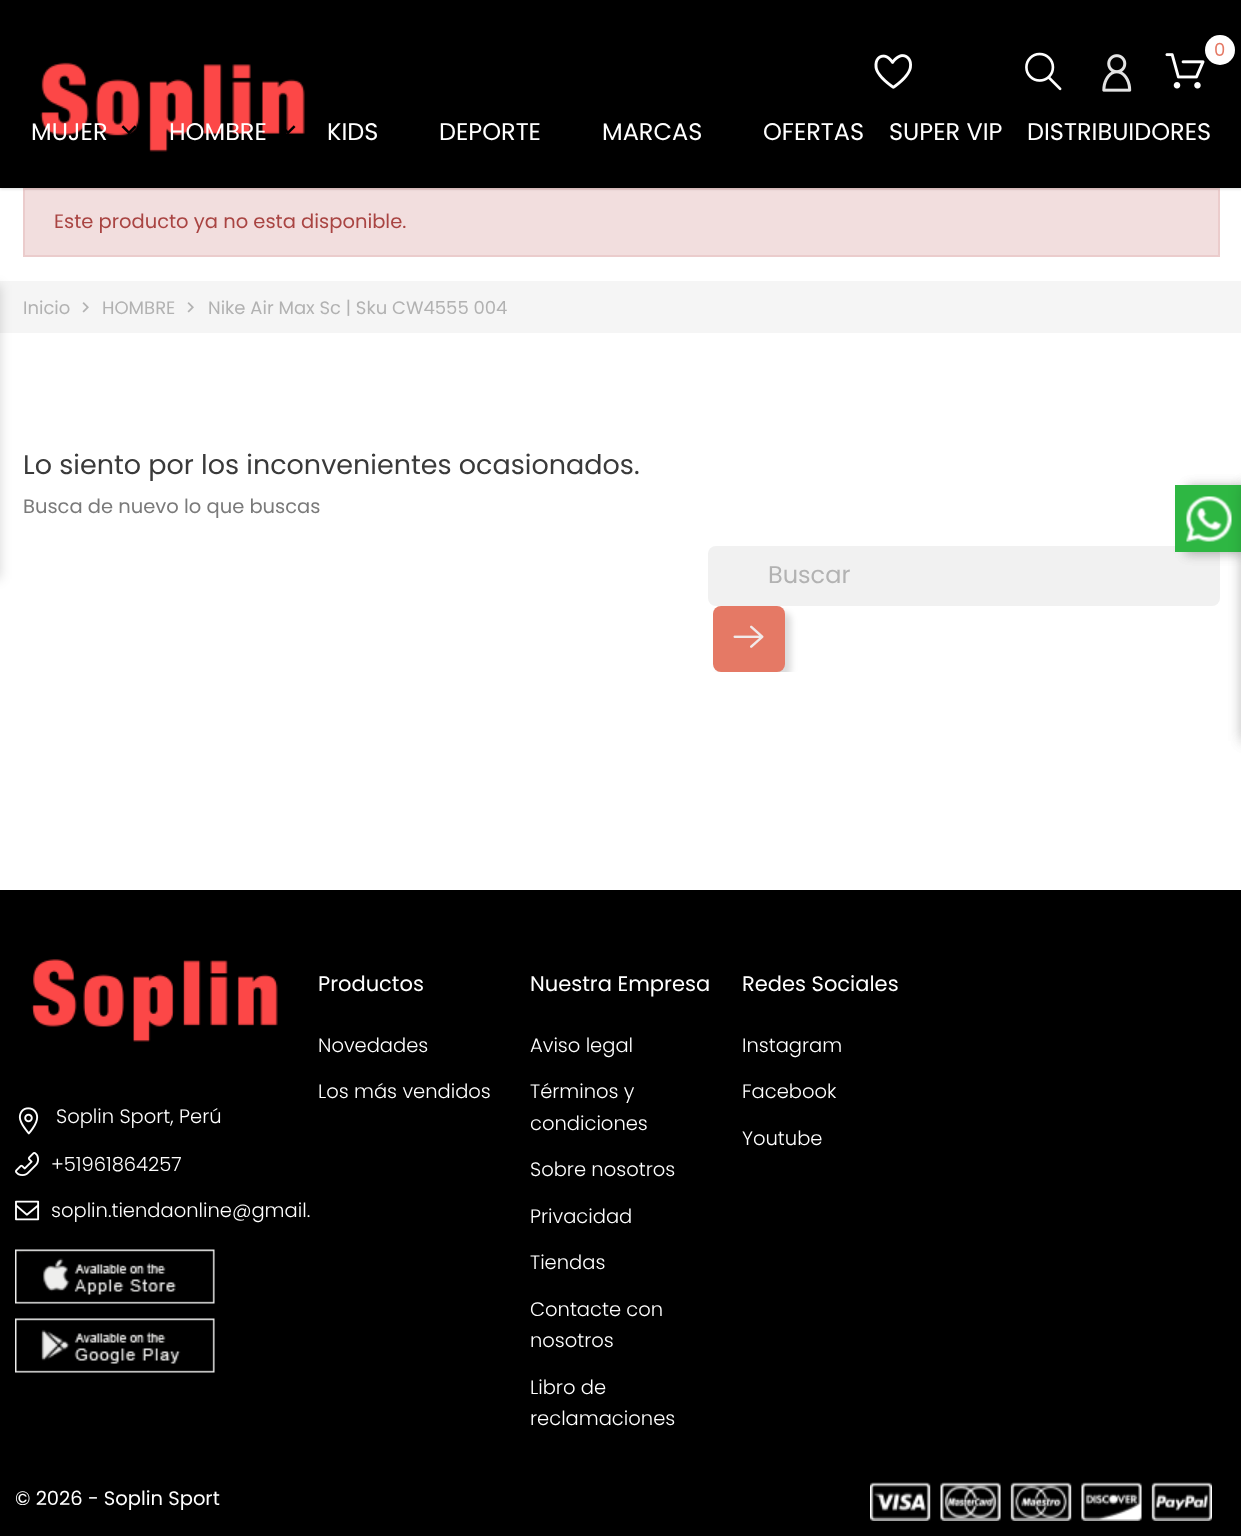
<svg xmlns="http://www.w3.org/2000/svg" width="1241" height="1536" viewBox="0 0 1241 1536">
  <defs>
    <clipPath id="clip1"><path d="M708 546h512v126H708z"/></clipPath>
  </defs>
  <rect width="100%" height="100%" fill="#fff"/>
  <path d="M24 189h1195v67H24z" fill="#f2dede" stroke="#ebcccc" stroke-width="2"/>
  <path d="M0 2h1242v187H0z" fill="#00000026" filter="blur(1.5px)"/>
  <path d="M0 0h1241v188H0z" fill="#000"/>
  <circle cx="1220" cy="50" r="15" fill="#fff"/>
  <image x="1165" y="53" width="40" height="36" href="img/1.png"/>
  <image x="40" y="62" width="265" height="90" href="img/2.png"/>
  <image x="874" y="54" width="38" height="35" href="img/3.png"/>
  <image x="1025" y="52" width="37" height="39" href="img/4.png"/>
  <image x="1102" y="54" width="30" height="38" href="img/5.png"/>
  <image x="121" y="125" width="16" height="9" href="img/6.png"/>
  <image x="286" y="125" width="10" height="9" href="img/7.png"/>
  <path d="M0 281h1241v52H0z" fill="#f5f5f5"/>
  <path d="M-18 285h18v294H-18z" fill="#00000029" filter="blur(6px)"/>
  <image x="82" y="302" width="7" height="11" href="img/8.png"/>
  <image x="187" y="302" width="7" height="11" href="img/8.png"/>
  <g clip-path="url(#clip1)">
    <rect x="719" y="612" width="72" height="66" rx="8" fill="#00000024" filter="blur(3px)"/>
  </g>
  <rect x="708" y="546" width="512" height="60" rx="8" fill="#f1f1f1"/>
  <rect x="713" y="606" width="72" height="66" rx="8" fill="#e57965"/>
  <image x="733" y="625" width="31" height="23" href="img/9.png"/>
  <path d="M1185 495h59v59H1185z" fill="#00000026" filter="blur(6px)"/>
  <path d="M1187 486h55v56H1187z" fill="#00000026" filter="blur(6px)"/>
  <path d="M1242 485h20v256H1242z" fill="#00000026" filter="blur(7px)"/>
  <path d="M1185 495h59v59H1185z" fill="#00000026" filter="blur(6px)"/>
  <path d="M1187 486h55v56H1187z" fill="#00000026" filter="blur(6px)"/>
  <path d="M1175 485h66v67H1175z" fill="#2eb743"/>
  <image x="1186" y="496" width="46" height="46" href="img/10.png"/>
  <path d="M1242 485h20v256H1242z" fill="#00000026" filter="blur(7px)"/>
  <path d="M0 890h1241v646H0z" fill="#000"/>
  <image x="31" y="959" width="247" height="83" href="img/11.png"/>
  <image x="18" y="1107" width="21" height="28" href="img/12.png"/>
  <image x="15" y="1152" width="24" height="24" href="img/13.png"/>
  <image x="15" y="1200" width="25" height="21" href="img/14.png"/>
  <image x="15" y="1249" width="200" height="55" href="img/15.png"/>
  <image x="15" y="1318" width="200" height="55" href="img/16.png"/>
  <image x="870" y="1482" width="342" height="39" href="img/17.png"/>
  <text x="1214" y="56" font-family="Poppins" font-size="18" fill="#e57965">0</text>
  <g font-family="Poppins" font-size="24" fill="#fff">
    <text x="31" y="140">MUJER</text>
    <text x="169" y="140">HOMBRE</text>
    <text x="327" y="140">KIDS</text>
    <text x="439" y="140">DEPORTE</text>
    <text x="602" y="140">MARCAS</text>
    <text x="763" y="140">OFERTAS</text>
    <text x="889" y="140">SUPER VIP</text>
    <text x="1027" y="140">DISTRIBUIDORES</text>
  </g>
  <text x="54" y="228" font-family="Poppins" font-size="19.5" fill="#a94442">Este producto ya no esta disponible.</text>
  <g font-family="Poppins" font-size="18" fill="#b2b2b2">
    <text x="23" y="314">Inicio</text>
    <text x="102" y="314">HOMBRE</text>
    <text x="208" y="314">Nike Air Max Sc | Sku CW4555 004</text>
  </g>
  <text x="23" y="474" font-family="Poppins" font-size="27" fill="#3a3a3a">Lo siento por los inconvenientes ocasionados.</text>
  <text x="23" y="513" font-family="Poppins" font-size="19.5" fill="#7a7a7a">Busca de nuevo lo que buscas</text>
  <text x="768" y="583" font-family="Poppins" font-size="24" fill="#b2b2b2">Buscar</text>
  <g font-family="Poppins" font-size="19.5" font-weight="300" fill="#fff">
    <text x="56" y="1123">Soplin Sport, Perú</text>
    <text x="51" y="1171">+51961864257</text>
    <text x="51" y="1217">soplin.tiendaonline@gmail.</text>
  </g>
  <text x="318" y="991" font-family="Poppins" font-size="21" fill="#fff">Productos</text>
  <g font-family="Poppins" font-size="19.5" font-weight="300" fill="#fff">
    <text x="318" y="1052">Novedades</text>
    <text x="318" y="1098">Los más vendidos</text>
  </g>
  <text x="530" y="991" font-family="Poppins" font-size="21" fill="#fff">Nuestra Empresa</text>
  <g font-family="Poppins" font-size="19.5" font-weight="300" fill="#fff">
    <text x="530" y="1052">Aviso legal</text>
    <text x="530" y="1098">Términos y</text>
    <text x="530" y="1130">condiciones</text>
    <text x="530" y="1176">Sobre nosotros</text>
    <text x="530" y="1223">Privacidad</text>
    <text x="530" y="1269">Tiendas</text>
    <text x="530" y="1316">Contacte con</text>
    <text x="530" y="1347">nosotros</text>
    <text x="530" y="1394">Libro de</text>
    <text x="530" y="1425">reclamaciones</text>
  </g>
  <text x="742" y="991" font-family="Poppins" font-size="21" fill="#fff">Redes Sociales</text>
  <g font-family="Poppins" font-size="19.5" font-weight="300" fill="#fff">
    <text x="742" y="1052">Instagram</text>
    <text x="742" y="1098">Facebook</text>
    <text x="742" y="1145">Youtube</text>
  </g>
  <text x="15" y="1505" font-family="Poppins" font-size="19.5" fill="#fff">© 2026 - Soplin Sport</text>
</svg>
